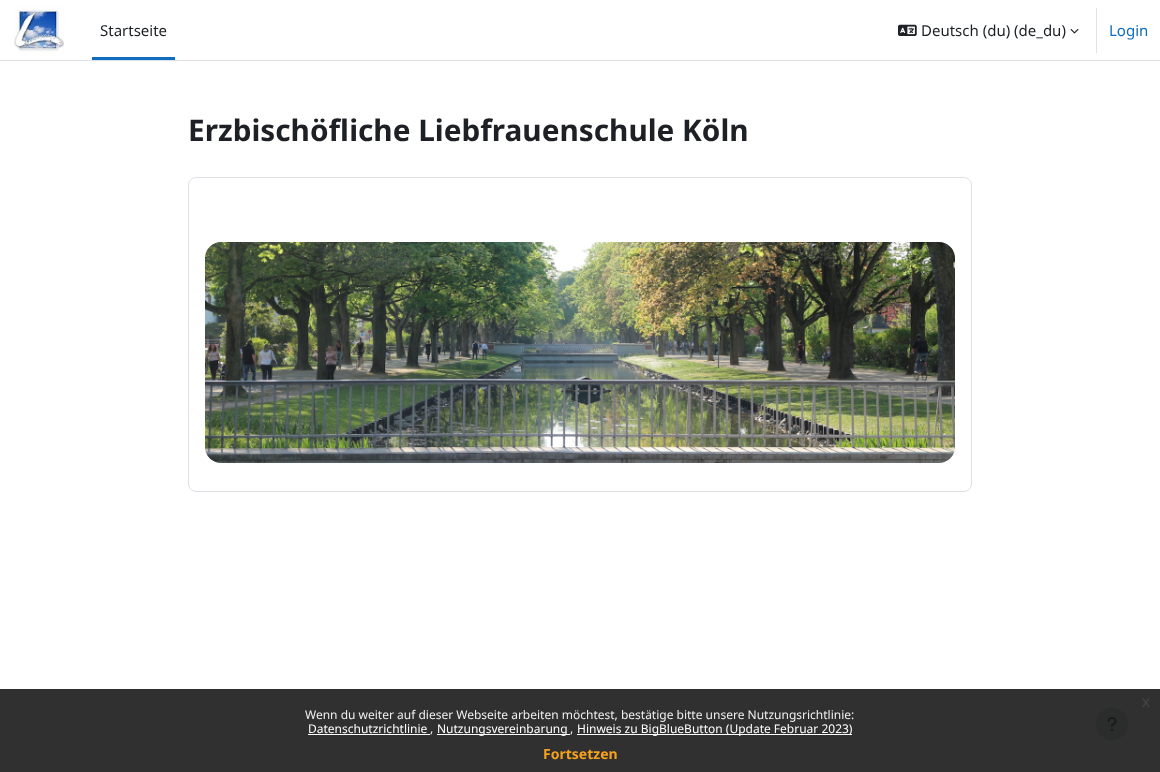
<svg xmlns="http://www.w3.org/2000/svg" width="1160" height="772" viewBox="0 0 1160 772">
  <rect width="100%" height="100%" fill="#fff"/>
  <path d="M0 689h1160v83H0z" fill="#303030"/>
  <path d="M0 60h1160v1H0z" fill="#dee2e6"/>
  <image x="12" y="4" width="52" height="52" href="img/1.png"/>
  <path d="M92 57h83v3H92z" fill="#0f6cbf"/>
  <image x="898" y="24" width="19" height="12" href="img/2.png"/>
  <image x="1070" y="29" width="9" height="5" href="img/3.png"/>
  <path d="M1096 8h1v45H1096z" fill="#dee2e6"/>
  <rect x="188.5" y="177.5" width="783" height="314" rx="7.5" fill="none" stroke="#dee2e6"/>
  <image x="205" y="242" width="750" height="221" href="img/4.png"/>
  <circle cx="1112" cy="724" r="16" fill="#2b2c2c"/>
  <image x="1107" y="717" width="10" height="14" href="img/5.png"/>
  <path d="M308 734h122v1H308z" fill="#fff"/>
  <path d="M437 734h133v1H437z" fill="#fff"/>
  <path d="M577 734h275v1H577z" fill="#fff"/>
  <g font-family="Noto Sans" font-size="15" fill="#1d2125">
    <text x="100" y="36">Startseite</text>
    <text x="921" y="36">Deutsch (du) (de_du)</text>
  </g>
  <text x="1109" y="36" font-family="Noto Sans" font-size="15" fill="#0f6cbf">Login</text>
  <text x="188" y="141" font-family="Noto Sans" font-size="29.75" font-weight="bold" fill="#1d2125">Erzbischöfliche Liebfrauenschule Köln</text>
  <text x="1142" y="707" font-family="Liberation Sans" font-size="16" fill="#474747">x</text>
  <text x="305" y="719" font-family="Noto Sans" font-size="12" fill="#efefef">Wenn du weiter auf dieser Webseite arbeiten möchtest, bestätige bitte unsere Nutzungsrichtlinie:</text>
  <text x="308" y="733" font-family="Noto Sans" font-size="12" fill="#fff">Datenschutzrichtlinie</text>
  <text x="430" y="733" font-family="Noto Sans" font-size="12" fill="#efefef">,</text>
  <text x="437" y="733" font-family="Noto Sans" font-size="12" fill="#fff">Nutzungsvereinbarung</text>
  <text x="570" y="733" font-family="Noto Sans" font-size="12" fill="#efefef">,</text>
  <text x="577" y="733" font-family="Noto Sans" font-size="12" fill="#fff">Hinweis zu BigBlueButton (Update Februar 2023)</text>
  <text x="543" y="759" font-family="Noto Sans" font-size="14" font-weight="bold" fill="#f6a21d">Fortsetzen</text>
</svg>
